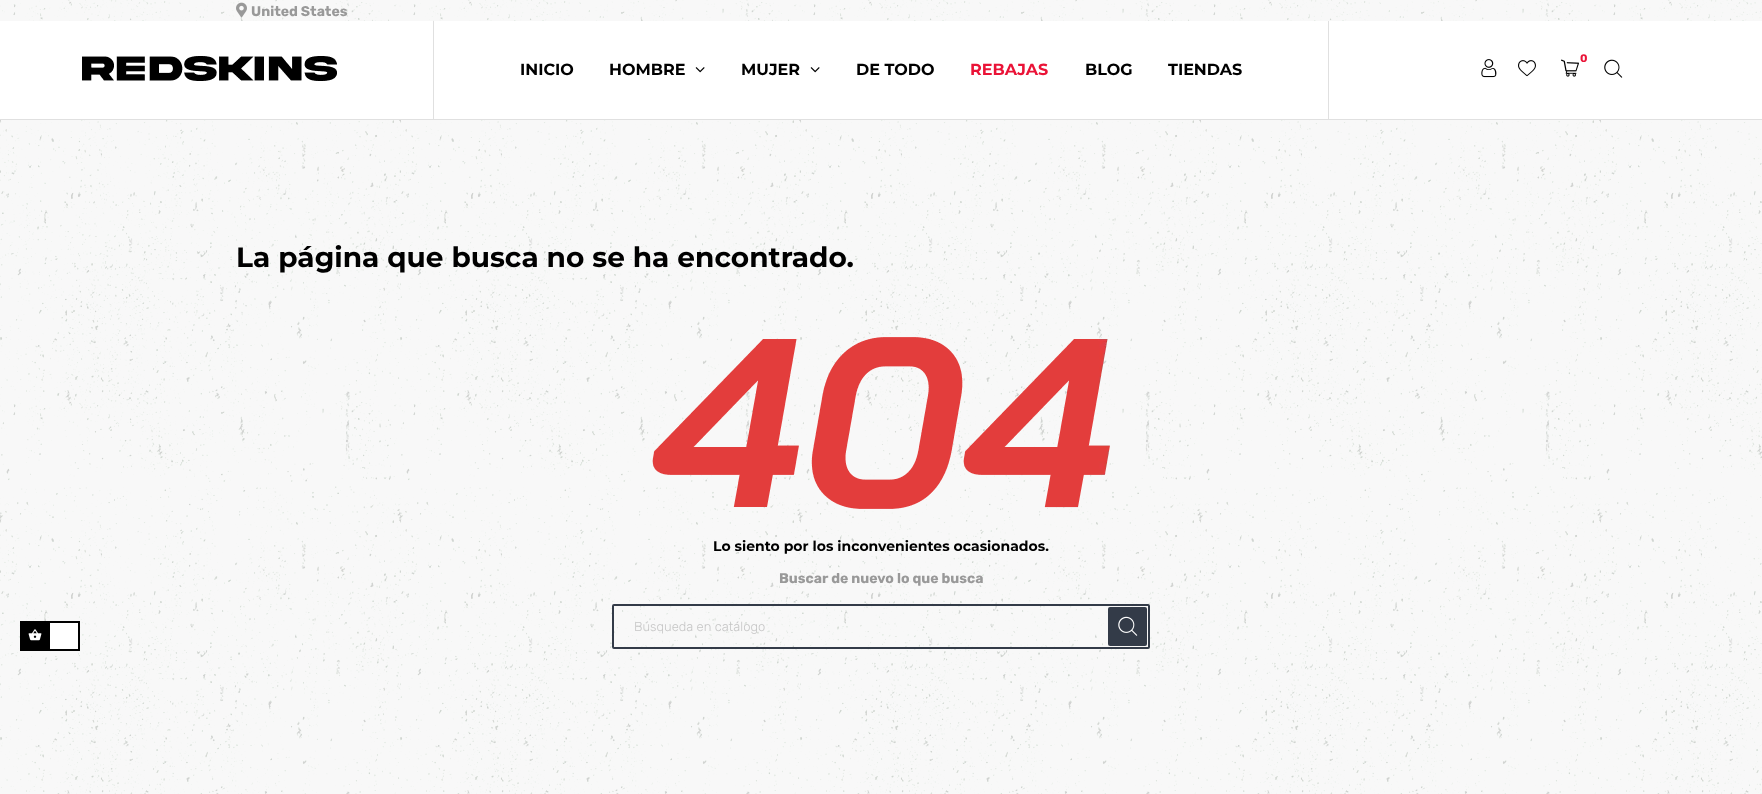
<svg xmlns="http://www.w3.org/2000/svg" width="1762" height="794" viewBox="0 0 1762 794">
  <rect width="100%" height="100%" fill="#f8f8f8"/>
  <image x="0" y="0" width="1762" height="794" href="img/1.png"/>
  <path d="M20 621h60v30H20z" fill="#000"/>
  <image x="28" y="629" width="14" height="12" href="img/2.png"/>
  <path d="M50 623h28v26H50z" fill="#fff"/>
  <image x="236" y="2" width="11" height="16" href="img/3.png"/>
  <path d="M0 21h1762v98H0z" fill="#fff"/>
  <path d="M0 119h1762v1H0z" fill="#e0e0e0"/>
  <image x="82" y="56" width="255" height="25" href="img/4.png"/>
  <path d="M1328 21h1v98H1328z" fill="#e0e0e0"/>
  <path d="M433 21h1v98H433z" fill="#e0e0e0"/>
  <image x="695" y="67" width="10" height="6" href="img/5.png"/>
  <image x="810" y="67" width="10" height="6" href="img/5.png"/>
  <image x="1481" y="59" width="16" height="19" href="img/6.png"/>
  <image x="1518" y="60" width="18" height="17" href="img/7.png"/>
  <image x="1561" y="59" width="18" height="18" href="img/8.png"/>
  <image x="1604" y="59" width="19" height="19" href="img/9.png"/>
  <image x="652" y="337" width="458" height="172" href="img/10.png"/>
  <rect x="613" y="605" width="536" height="43" rx="1" fill="none" stroke="#333b48" stroke-width="2"/>
  <rect x="1108" y="607" width="39" height="39" rx="2" fill="#333b48"/>
  <image x="1118" y="616" width="20" height="20" href="img/11.png"/>
  <text x="251" y="16" font-family="Rubik" font-size="14" font-weight="bold" fill="#999">United States</text>
  <g font-family="Montserrat" font-size="16" font-weight="bold" fill="#000">
    <text x="520" y="75">INICIO</text>
    <text x="609" y="75">HOMBRE</text>
    <text x="741" y="75">MUJER</text>
    <text x="856" y="75">DE TODO</text>
  </g>
  <text x="970" y="75" font-family="Montserrat" font-size="16" font-weight="bold" fill="#ea1337">REBAJAS</text>
  <g font-family="Montserrat" font-size="16" font-weight="bold" fill="#000">
    <text x="1085" y="75">BLOG</text>
    <text x="1168" y="75">TIENDAS</text>
  </g>
  <text x="1580" y="62" font-family="Rubik" font-size="11" font-weight="bold" fill="#ea1337">0</text>
  <text x="236" y="267" font-family="Montserrat" font-size="28" font-weight="bold" fill="#000">La página que busca no se ha encontrado.</text>
  <text x="713" y="551" font-family="Montserrat" font-size="14" font-weight="bold" fill="#000">Lo siento por los inconvenientes ocasionados.</text>
  <text x="779" y="583" font-family="Rubik" font-size="14" font-weight="bold" fill="#999">Buscar de nuevo lo que busca</text>
  <text x="634" y="631" font-family="Rubik" font-size="13" font-weight="300" fill="#c6c6c6">Búsqueda en catálogo</text>
</svg>
